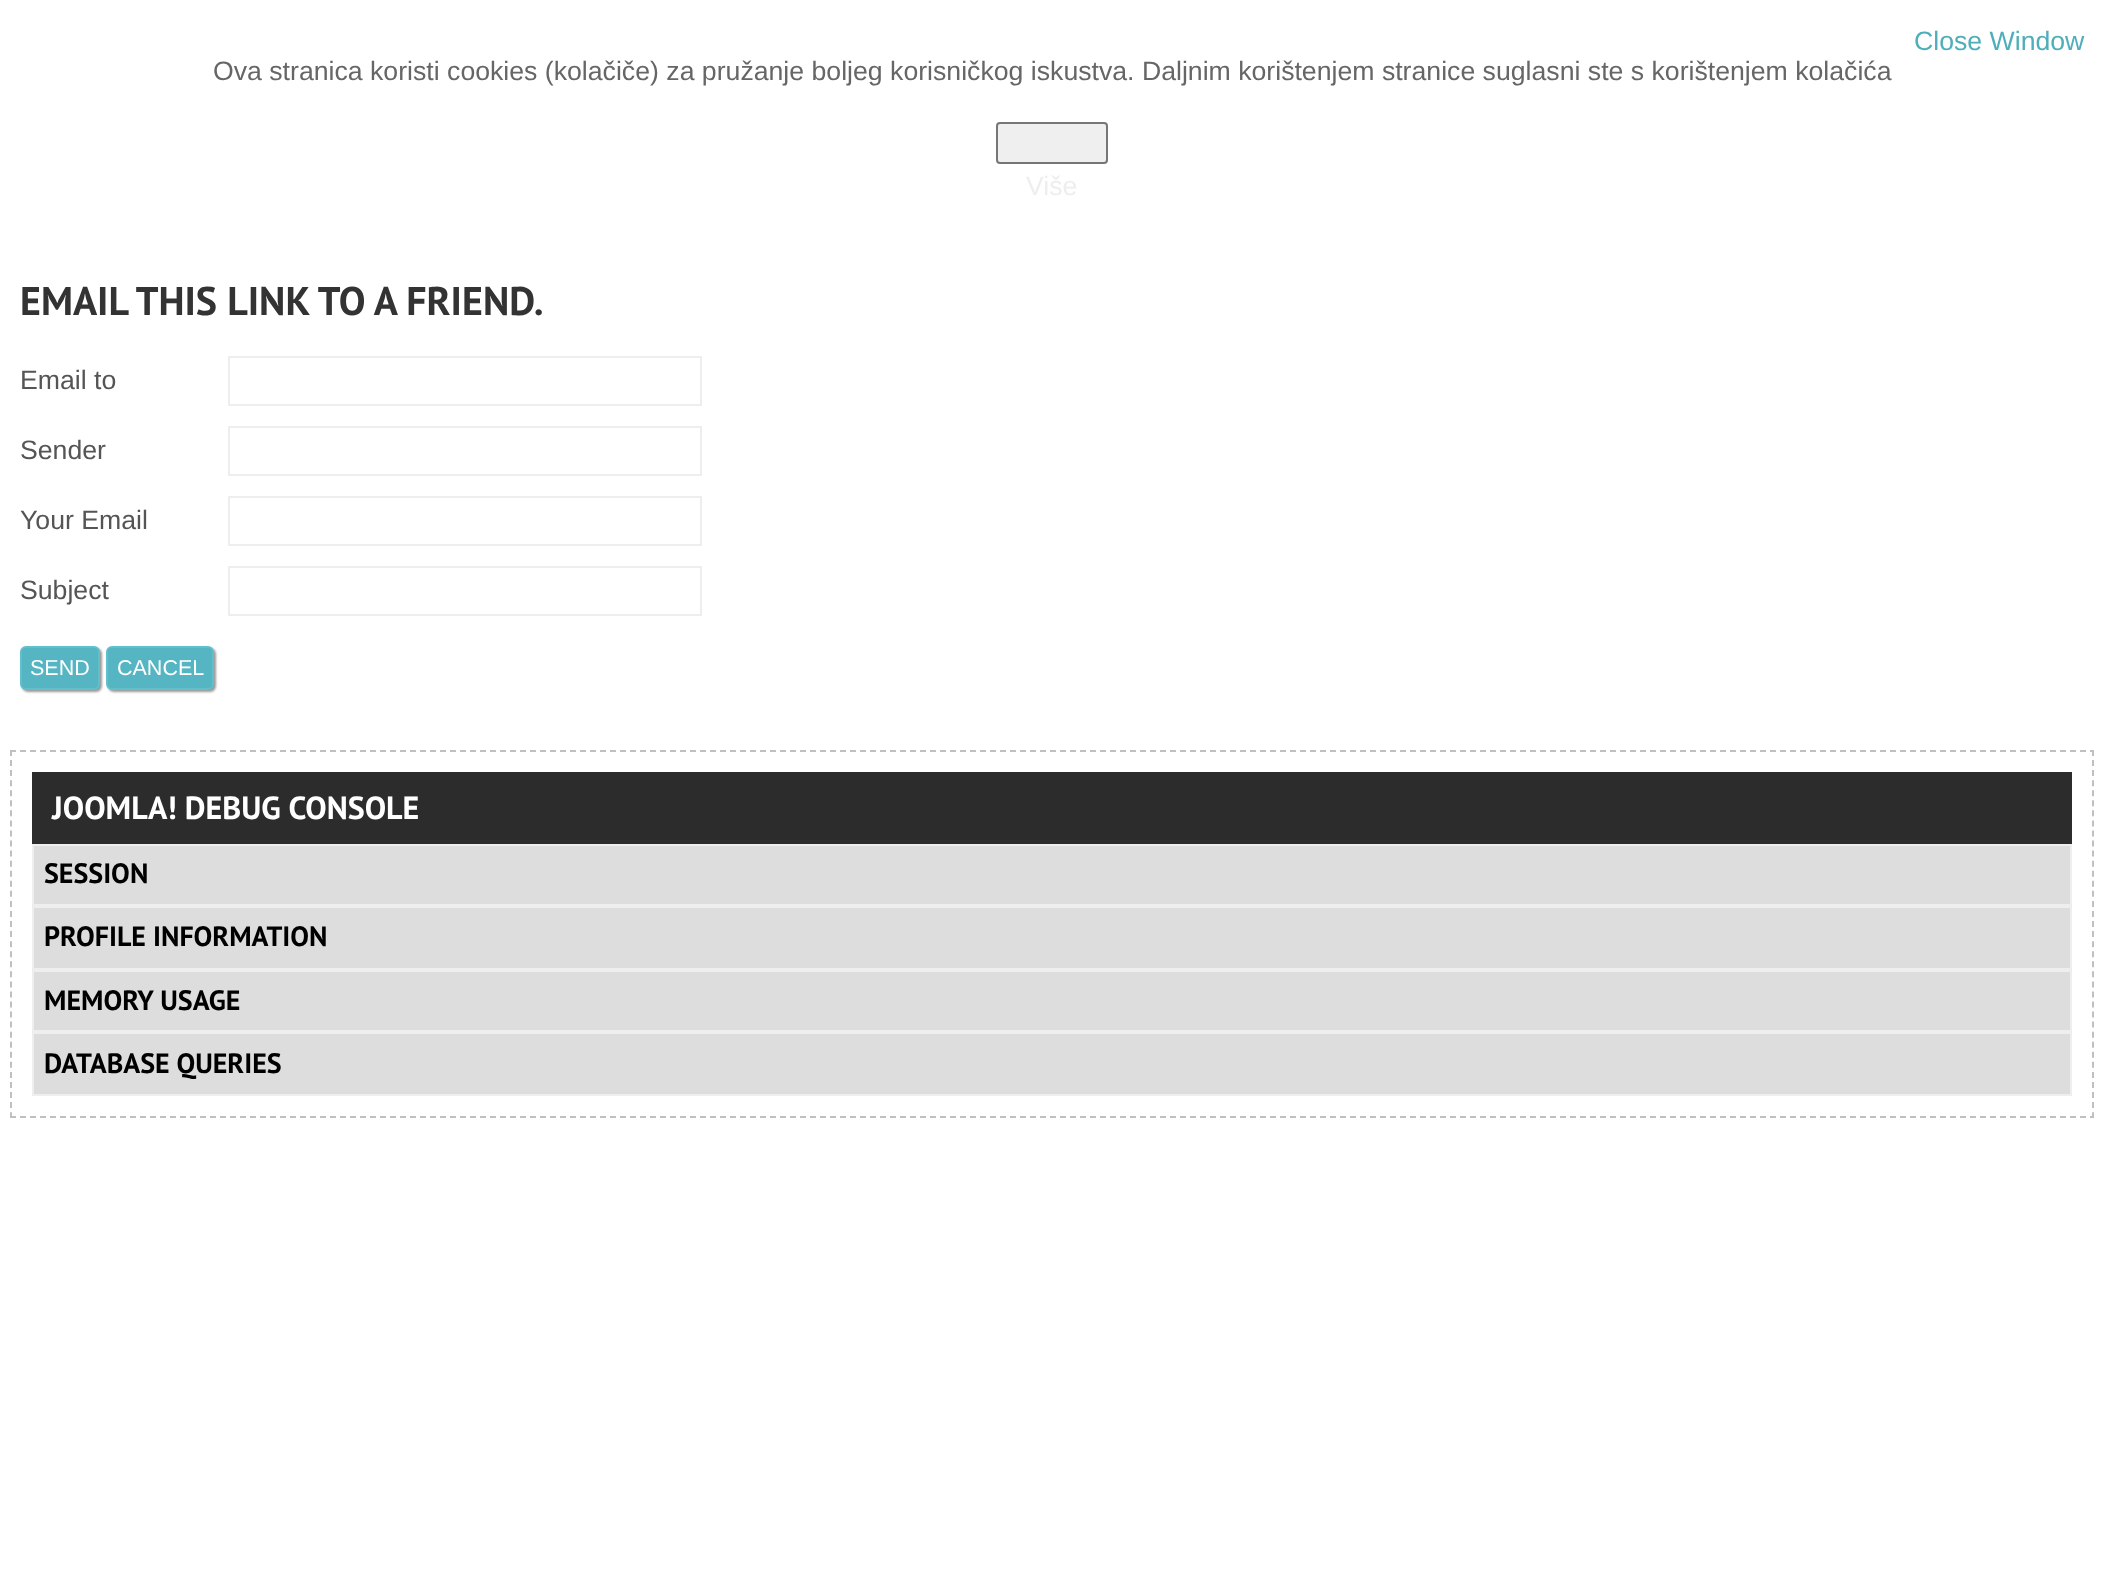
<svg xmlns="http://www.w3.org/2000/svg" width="2104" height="1586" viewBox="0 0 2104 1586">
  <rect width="100%" height="100%" fill="#fff"/>
  <path d="M229 357h472v48H229z" fill="none" stroke="#eee" stroke-width="2"/>
  <path d="M229 427h472v48H229z" fill="none" stroke="#eee" stroke-width="2"/>
  <path d="M229 497h472v48H229z" fill="none" stroke="#eee" stroke-width="2"/>
  <path d="M229 567h472v48H229z" fill="none" stroke="#eee" stroke-width="2"/>
  <rect x="22" y="648" width="80" height="44" rx="6" fill="#999" filter="blur(1px)"/>
  <rect x="21" y="647" width="78" height="42" rx="5" fill="#55b5c2" stroke="#5fbfcb" stroke-width="2"/>
  <rect x="108" y="648" width="108" height="44" rx="6" fill="#999" filter="blur(1px)"/>
  <rect x="107" y="647" width="106" height="42" rx="5" fill="#55b5c2" stroke="#5fbfcb" stroke-width="2"/>
  <rect x="997" y="123" width="110" height="40" rx="3" fill="#efefef" stroke="#767676" stroke-width="2"/>
  <path d="M10 751H2094" fill="none" stroke="#c0c0c0" stroke-width="2" stroke-dasharray="6 4"/>
  <path d="M2093 750V1118" fill="none" stroke="#c0c0c0" stroke-width="2" stroke-dasharray="6 4.06"/>
  <path d="M10 1117H2094" fill="none" stroke="#c0c0c0" stroke-width="2" stroke-dasharray="6 4"/>
  <path d="M11 750V1118" fill="none" stroke="#c0c0c0" stroke-width="2" stroke-dasharray="6 4.06"/>
  <path d="M32 772h2040v72H32z" fill="#2c2c2c"/>
  <path d="M33 845h2038v60H33z" fill="#ddd" stroke="#eee" stroke-width="2"/>
  <path d="M33 907h2038v62H33z" fill="#ddd" stroke="#eee" stroke-width="2"/>
  <path d="M33 971h2038v60H33z" fill="#ddd" stroke="#eee" stroke-width="2"/>
  <path d="M33 1033h2038v62H33z" fill="#ddd" stroke="#eee" stroke-width="2"/>
  <text x="1914" y="50" font-family="Liberation Sans" font-size="26.67" fill="#4eaeb9">Close Window</text>
  <text x="20" y="315" font-family="PT Sans" font-size="40" font-weight="bold" fill="#333">EMAIL THIS LINK TO A FRIEND.</text>
  <g font-family="Liberation Sans" font-size="26.67" fill="#555">
    <text x="20" y="389">Email to</text>
    <text x="20" y="459">Sender</text>
    <text x="20" y="529">Your Email</text>
    <text x="20" y="599">Subject</text>
  </g>
  <g font-family="Liberation Sans" font-size="21.5" fill="#fff">
    <text x="30" y="675">SEND</text>
    <text x="117" y="675">CANCEL</text>
  </g>
  <text x="213" y="80" font-family="Liberation Sans" font-size="26.67" fill="#666">Ova stranica koristi cookies (kolačiče) za pružanje boljeg korisničkog iskustva. Daljnim korištenjem stranice suglasni ste s korištenjem kolačića</text>
  <text x="1026" y="195" font-family="Liberation Sans" font-size="26.67" fill="#eee">Više</text>
  <text x="52" y="819" font-family="PT Sans" font-size="32" font-weight="bold" fill="#fff">JOOMLA! DEBUG CONSOLE</text>
  <g font-family="PT Sans" font-size="28" font-weight="bold" fill="#000">
    <text x="44" y="883">SESSION</text>
    <text x="44" y="946">PROFILE INFORMATION</text>
    <text x="44" y="1010">MEMORY USAGE</text>
    <text x="44" y="1073">DATABASE QUERIES</text>
  </g>
</svg>
